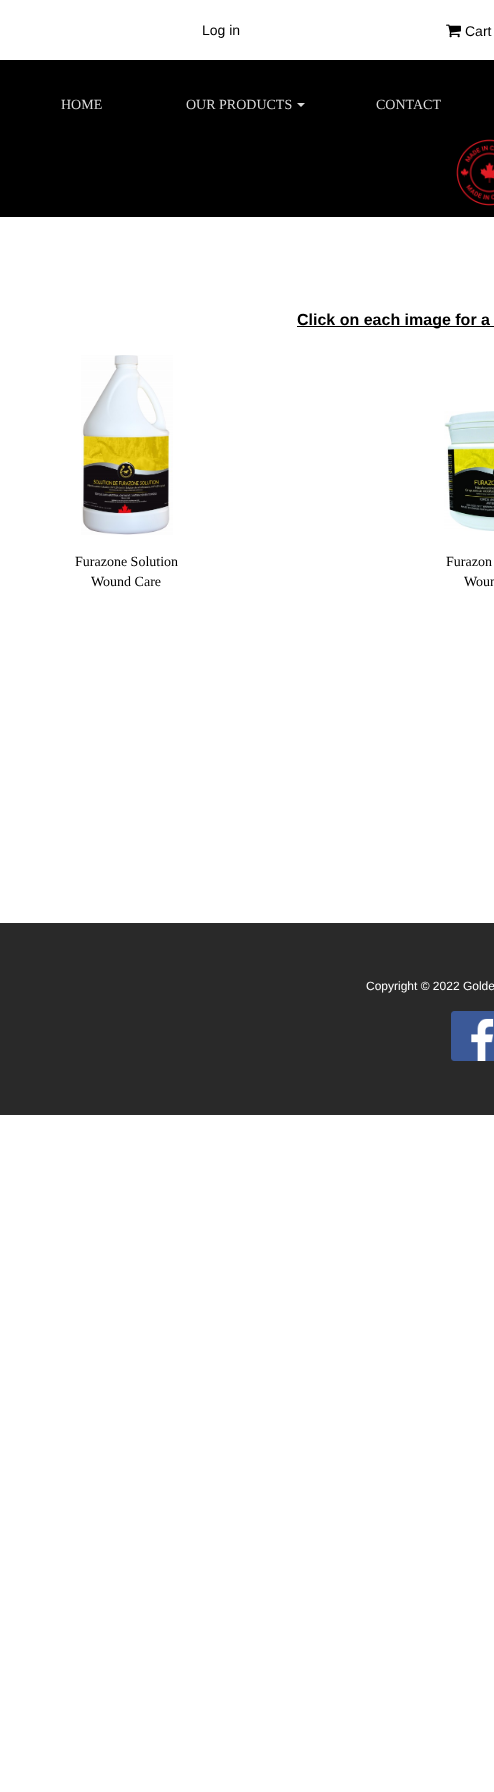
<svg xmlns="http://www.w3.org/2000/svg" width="494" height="1792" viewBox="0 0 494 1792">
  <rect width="100%" height="100%" fill="#fff"/>
  <image x="446" y="24" width="15" height="14" href="img/1.png"/>
  <path d="M0 60h494v157H0z" fill="#000"/>
  <path d="M297 103H305L301 107Z" fill="#d9d9d9"/>
  <image x="456" y="139" width="38" height="67" href="img/2.png"/>
  <path d="M297 326h197v1H297z" fill="#000"/>
  <image x="81" y="355" width="92" height="180" href="img/3.png"/>
  <image x="444" y="411" width="50" height="120" href="img/4.png"/>
  <path d="M0 923h494v192H0z" fill="#292929"/>
  <image x="451" y="1011" width="43" height="50" href="img/5.png"/>
  <g font-family="Liberation Sans" font-size="14" fill="#000">
    <text x="202" y="35">Log in</text>
    <text x="465" y="36">Cart</text>
  </g>
  <g font-family="Liberation Serif" font-size="14" fill="#d9d9d9">
    <text x="61" y="109">HOME</text>
    <text x="186" y="109">OUR PRODUCTS</text>
    <text x="376" y="109">CONTACT</text>
  </g>
  <text x="297" y="325" font-family="Liberation Sans" font-size="16" font-weight="bold" fill="#000">Click on each image for a</text>
  <g font-family="Liberation Serif" font-size="14" fill="#000">
    <text x="75" y="566">Furazone Solution</text>
    <text x="91" y="586">Wound Care</text>
    <text x="446" y="566">Furazon</text>
    <text x="464" y="586">Woun</text>
  </g>
  <text x="366" y="990" font-family="Liberation Sans" font-size="12" fill="#fff">Copyright © 2022 Golde</text>
</svg>
